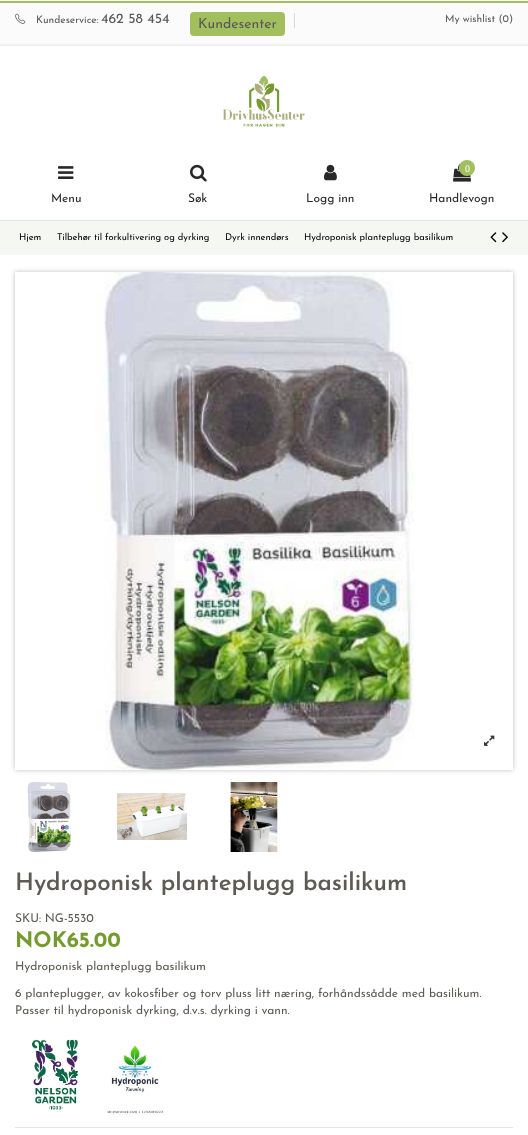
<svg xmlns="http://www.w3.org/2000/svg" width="528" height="1135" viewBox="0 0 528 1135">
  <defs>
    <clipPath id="clip1"><path d="M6 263H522V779H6ZM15 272H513V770H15Z" clip-rule="evenodd"/></clipPath>
  </defs>
  <rect width="100%" height="100%" fill="#fff"/>
  <path d="M0 1h528v2H0z" fill="#a2bf5e"/>
  <path d="M0 3h528v41H0z" fill="#fbfbfb"/>
  <path d="M0 44h528v2H0z" fill="#f0f0f0"/>
  <image x="15" y="13" width="11" height="11" href="img/1.png"/>
  <rect x="190" y="12" width="95" height="24" rx="4" fill="#a2bf5e"/>
  <path d="M294 13h1v15H294z" fill="#dadada"/>
  <path d="M0 220h528v1H0z" fill="#e3e3e3"/>
  <image x="223" y="75" width="82" height="52" href="img/2.png"/>
  <image x="58" y="166" width="16" height="13" href="img/3.png"/>
  <image x="190" y="164" width="17" height="18" href="img/4.png"/>
  <image x="324" y="164" width="13" height="17" href="img/5.png"/>
  <image x="453" y="163" width="18" height="19" href="img/6.png"/>
  <circle cx="467" cy="168" r="8" fill="#a2bf5e"/>
  <path d="M0 221h528v34H0z" fill="#f4f7f2"/>
  <image x="490" y="232" width="7" height="11" href="img/7.png"/>
  <image x="502" y="232" width="6" height="11" href="img/8.png"/>
  <g clip-path="url(#clip1)">
    <path d="M15 272h498v498H15z" fill="#00000040" filter="blur(2.5px)"/>
  </g>
  <image x="95" y="272" width="319" height="498" href="img/9.png"/>
  <image x="484" y="735" width="11" height="11" href="img/10.png"/>
  <image x="27" y="782" width="44" height="70" href="img/11.png"/>
  <image x="117" y="793" width="70" height="47" href="img/12.png"/>
  <image x="230" y="782" width="48" height="70" href="img/13.png"/>
  <image x="32" y="1039" width="47" height="71" href="img/14.png"/>
  <image x="107" y="1044" width="57" height="71" href="img/15.png"/>
  <path d="M15 1127h498v1H15z" fill="#e7e7e7"/>
  <text x="36" y="23" font-family="Josefin Sans" font-size="10.25" fill="#585858">Kundeservice:</text>
  <g font-family="Josefin Sans" font-size="14" fill="#585858">
    <text x="101" y="23">462 58 454</text>
    <text x="198" y="28">Kundesenter</text>
  </g>
  <text x="445" y="22" font-family="Josefin Sans" font-size="10.25" fill="#585858">My wishlist (0)</text>
  <g font-family="Josefin Sans" font-size="12" fill="#282828">
    <text x="51" y="202">Menu</text>
    <text x="188" y="202">Søk</text>
    <text x="306" y="202">Logg inn</text>
  </g>
  <text x="465" y="172" font-family="Liberation Serif" font-size="10" fill="#fff">0</text>
  <text x="429" y="202" font-family="Josefin Sans" font-size="12" fill="#282828">Handlevogn</text>
  <g font-family="Josefin Sans" font-size="9.4" fill="#000">
    <text x="19" y="240">Hjem</text>
    <text x="57" y="240">Tilbehør til forkultivering og dyrking</text>
    <text x="225" y="240">Dyrk innendørs</text>
    <text x="304" y="240">Hydroponisk planteplugg basilikum</text>
  </g>
  <text x="15" y="890" font-family="Josefin Sans" font-size="24" font-weight="600" fill="#5e5a54">Hydroponisk planteplugg basilikum</text>
  <text x="15" y="922" font-family="Josefin Sans" font-size="12" fill="#5e5a54">SKU: NG-5530</text>
  <text x="15" y="947" font-family="Josefin Sans" font-size="21.5" font-weight="bold" fill="#759b2e">NOK65.00</text>
  <g font-family="Josefin Sans" font-size="12" fill="#5e5a54">
    <text x="15" y="970">Hydroponisk planteplugg basilikum</text>
    <text x="15" y="997">6 planteplugger, av kokosfiber og torv pluss litt næring, forhåndssådde med basilikum.</text>
    <text x="15" y="1014">Passer til hydroponisk dyrking, d.v.s. dyrking i vann.</text>
  </g>
</svg>
